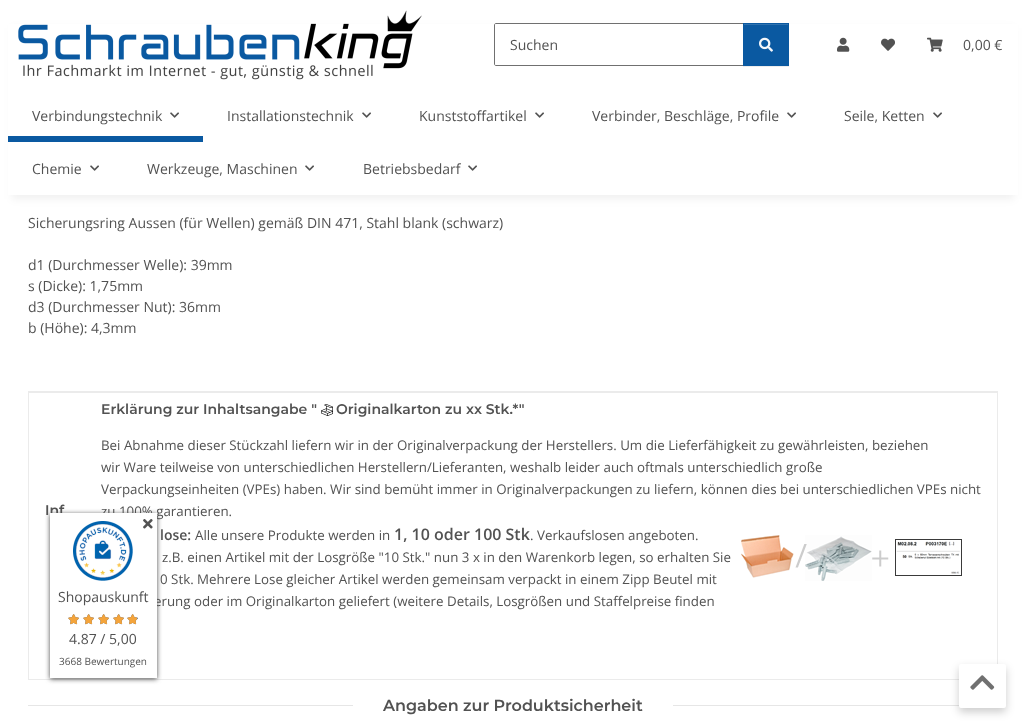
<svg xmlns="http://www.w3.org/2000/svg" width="1026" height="728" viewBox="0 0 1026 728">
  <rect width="100%" height="100%" fill="#fff"/>
  <path d="M12 28h1002v171H12z" fill="#0000000f" filter="blur(4.5px)"/>
  <path d="M8 24h1010v171H8z" fill="#fff"/>
  <image x="18" y="10" width="404" height="70" href="img/1.png"/>
  <path d="M496 23.5H743.5V65.5H496C495 65.5 494.5 65 494.5 64V25C494.5 24 495 23.5 496 23.5Z" fill="none" stroke="#707070"/>
  <path d="M743 24h46v43H743z" fill="#00000012" filter="blur(0.5px)"/>
  <path d="M743 23h46v43H743z" fill="#0a59a1"/>
  <path d="M744 24h44v1H744z" fill="#2f72af"/>
  <image x="759" y="37" width="14" height="15" href="img/2.png"/>
  <image x="837" y="37" width="13" height="15" href="img/3.png"/>
  <image x="881" y="38" width="14" height="13" href="img/4.png"/>
  <image x="927" y="37" width="16" height="15" href="img/5.png"/>
  <image x="170" y="112" width="9" height="6" href="img/6.png"/>
  <path d="M8 136h195v6H8z" fill="#0a59a1"/>
  <image x="362" y="112" width="9" height="6" href="img/6.png"/>
  <image x="535" y="112" width="9" height="6" href="img/6.png"/>
  <image x="787" y="112" width="9" height="6" href="img/6.png"/>
  <image x="933" y="112" width="9" height="6" href="img/6.png"/>
  <image x="90" y="165" width="9" height="6" href="img/6.png"/>
  <image x="305" y="165" width="9" height="6" href="img/6.png"/>
  <image x="468" y="165" width="9" height="6" href="img/6.png"/>
  <path d="M28 391h970v2H28z" fill="#ebebeb"/>
  <path d="M997 392h1v272H997z" fill="#ebebeb"/>
  <path d="M28 679h931v1H28z" fill="#ebebeb"/>
  <path d="M28 392h1v288H28z" fill="#ebebeb"/>
  <image x="321" y="404" width="12" height="12" href="img/7.png"/>
  <image x="741" y="535" width="221" height="46" href="img/8.png"/>
  <path d="M28 705h325v1H28z" fill="#e6e6e6"/>
  <path d="M673 705h286v1H673z" fill="#e6e6e6"/>
  <path d="M50 514h107v165H50z" fill="#4a4a4a" filter="blur(2.5px)"/>
  <rect x="959" y="668" width="47" height="44" rx="2" fill="#00000033" filter="blur(4px)"/>
  <rect x="959" y="664" width="47" height="44" rx="2" fill="#fff"/>
  <image x="970" y="675" width="25" height="15" href="img/14.png"/>
  <g font-family="Open Sans" font-size="14" fill="#525252">
    <text x="510" y="50">Suchen</text>
    <text x="963" y="50">0,00 €</text>
    <text x="32" y="121">Verbindungstechnik</text>
    <text x="227" y="121">Installationstechnik</text>
    <text x="419" y="121">Kunststoffartikel</text>
    <text x="592" y="121">Verbinder, Beschläge, Profile</text>
    <text x="844" y="121">Seile, Ketten</text>
    <text x="32" y="174">Chemie</text>
    <text x="147" y="174">Werkzeuge, Maschinen</text>
    <text x="363" y="174">Betriebsbedarf</text>
    <text x="28" y="228">Sicherungsring Aussen (für Wellen) gemäß DIN 471, Stahl blank (schwarz)</text>
    <text x="28" y="270">d1 (Durchmesser Welle): 39mm</text>
    <text x="28" y="291">s (Dicke): 1,75mm</text>
    <text x="28" y="312">d3 (Durchmesser Nut): 36mm</text>
    <text x="28" y="333">b (Höhe): 4,3mm</text>
  </g>
  <g font-family="Montserrat" font-size="14" font-weight="600" fill="#525252">
    <text x="45" y="515">Inf</text>
    <text x="101" y="414">Erklärung zur Inhaltsangabe "</text>
    <text x="336" y="414">Originalkarton zu xx Stk.*"</text>
  </g>
  <g font-family="Open Sans" font-size="13.33" fill="#525252">
    <text x="101" y="450">Bei Abnahme dieser Stückzahl liefern wir in der Originalverpackung der Herstellers. Um die Lieferfähigkeit zu gewährleisten, beziehen</text>
    <text x="101" y="472">wir Ware teilweise von unterschiedlichen Herstellern/Lieferanten, weshalb leider auch oftmals unterschiedlich große</text>
    <text x="101" y="494">Verpackungseinheiten (VPEs) haben. Wir sind bemüht immer in Originalverpackungen zu liefern, können dies bei unterschiedlichen VPEs nicht</text>
    <text x="101" y="516">zu 100% garantieren.</text>
  </g>
  <text x="160" y="540" font-family="Open Sans" font-size="14" font-weight="600" fill="#525252">lose:</text>
  <text x="195" y="540" font-family="Open Sans" font-size="13.33" fill="#525252">Alle unsere Produkte werden in</text>
  <text x="394" y="540" font-family="Open Sans" font-size="16" font-weight="600" fill="#525252">1, 10 oder 100 Stk</text>
  <g font-family="Open Sans" font-size="13.33" fill="#525252">
    <text x="530" y="540">. Verkaufslosen angeboten.</text>
    <text x="162" y="562">z.B. einen Artikel mit der Losgröße "10 Stk." nun 3 x in den Warenkorb legen, so erhalten Sie</text>
    <text x="160" y="584">0 Stk. Mehrere Lose gleicher Artikel werden gemeinsam verpackt in einem Zipp Beutel mit</text>
    <text x="154" y="606">erung oder im Originalkarton geliefert (weitere Details, Losgrößen und Staffelpreise finden</text>
  </g>
  <text x="383" y="711" font-family="Montserrat" font-size="16" font-weight="600" fill="#525252">Angaben zur Produktsicherheit</text>
  <path d="M50 513h107v165H50z" fill="#fff"/>
  <image x="73" y="521" width="60" height="60" href="img/9.png"/>
  <image x="143" y="519" width="10" height="10" href="img/10.png"/>
  <text x="58" y="602" font-family="Open Sans" font-size="14" fill="#525252">Shopauskunft</text>
  <image x="68" y="614" width="11" height="11" href="img/11.png"/>
  <image x="68" y="614" width="11" height="10" href="img/12.png"/>
  <image x="83" y="614" width="11" height="11" href="img/11.png"/>
  <image x="83" y="614" width="11" height="10" href="img/12.png"/>
  <image x="98" y="614" width="11" height="11" href="img/11.png"/>
  <image x="98" y="614" width="11" height="10" href="img/12.png"/>
  <image x="113" y="614" width="11" height="11" href="img/11.png"/>
  <image x="113" y="614" width="11" height="10" href="img/12.png"/>
  <image x="127" y="614" width="11" height="11" href="img/11.png"/>
  <image x="127" y="614" width="10" height="10" href="img/13.png"/>
  <text x="69" y="644" font-family="Open Sans" font-size="14" fill="#525252">4.87 / 5,00</text>
  <text x="59" y="665" font-family="Open Sans" font-size="10" fill="#525252">3668 Bewertungen</text>
</svg>
